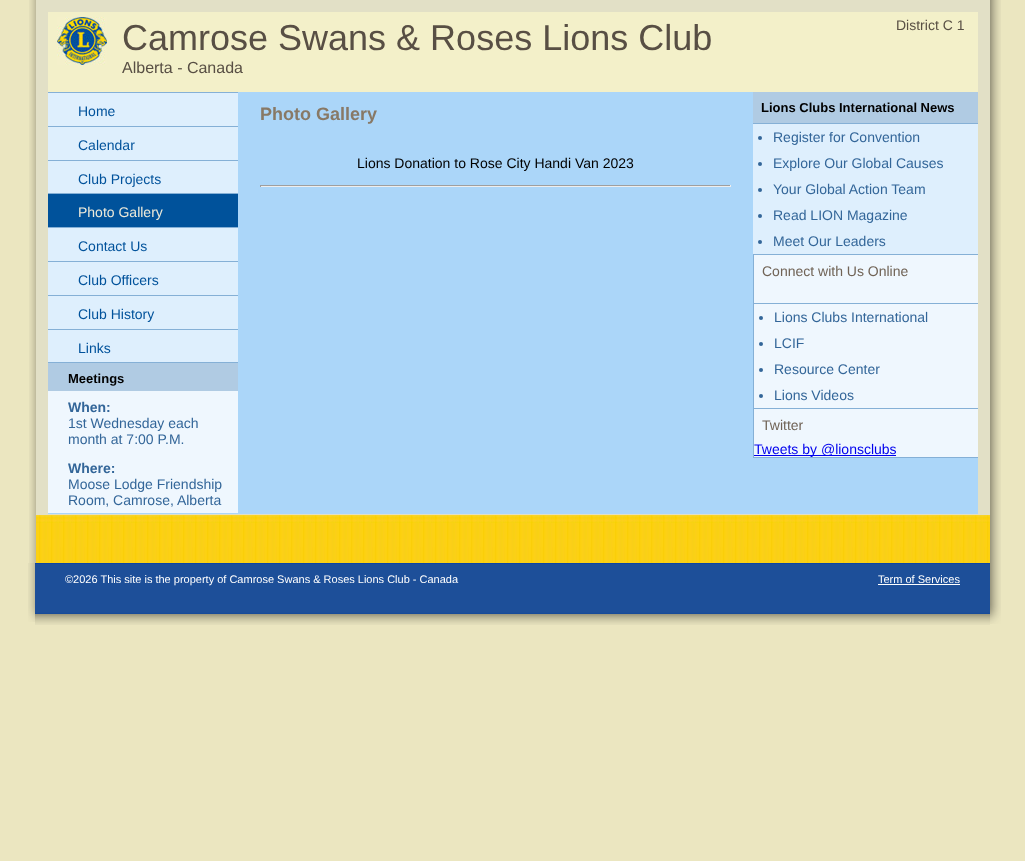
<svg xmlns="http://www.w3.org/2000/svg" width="1025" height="861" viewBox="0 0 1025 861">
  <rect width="100%" height="100%" fill="#ebe6c0"/>
  <image x="29" y="0" width="7" height="563" href="img/1.png"/>
  <path d="M36 0h954v515H36z" fill="#e2e0c6"/>
  <image x="36" y="515" width="954" height="48" href="img/2.png"/>
  <path d="M48 12h930v80H48z" fill="#f3f0c9"/>
  <image x="57" y="17" width="50" height="48" href="img/3.png"/>
  <path d="M48 92h930v422H48z" fill="#abd6f9"/>
  <path d="M48 92h190v1H48z" fill="#85b0d6"/>
  <path d="M48 126h190v1H48z" fill="#85b0d6"/>
  <path d="M48 93h190v33H48z" fill="#deeffd"/>
  <path d="M48 160h190v1H48z" fill="#85b0d6"/>
  <path d="M48 127h190v33H48z" fill="#deeffd"/>
  <path d="M48 193h190v1H48z" fill="#85b0d6"/>
  <path d="M48 161h190v32H48z" fill="#deeffd"/>
  <path d="M48 227h190v1H48z" fill="#85b0d6"/>
  <path d="M48 194h190v33H48z" fill="#00529b"/>
  <path d="M48 261h190v1H48z" fill="#85b0d6"/>
  <path d="M48 228h190v33H48z" fill="#deeffd"/>
  <path d="M48 295h190v1H48z" fill="#85b0d6"/>
  <path d="M48 262h190v33H48z" fill="#deeffd"/>
  <path d="M48 329h190v1H48z" fill="#85b0d6"/>
  <path d="M48 296h190v33H48z" fill="#deeffd"/>
  <path d="M48 362h190v1H48z" fill="#85b0d6"/>
  <path d="M48 330h190v32H48z" fill="#deeffd"/>
  <path d="M48 391h190v122H48z" fill="#eff7fe"/>
  <path d="M48 363h190v28H48z" fill="#b0cbe3"/>
  <path d="M260 185h471v1H260z" fill="#9f9f9f"/>
  <path d="M730 185h1v2H730z" fill="#eee"/>
  <path d="M260 186h471v1H260z" fill="#eee"/>
  <path d="M260 185h1v2H260z" fill="#9f9f9f"/>
  <path d="M753 124h225v130H753z" fill="#deeffd"/>
  <path d="M753 92h225v31H753z" fill="#b0cbe3"/>
  <path d="M753 123h225v1H753z" fill="#85b0d6"/>
  <circle cx="760" cy="138" r="2" fill="#369"/>
  <circle cx="760" cy="164" r="2" fill="#369"/>
  <circle cx="760" cy="190" r="2" fill="#369"/>
  <circle cx="760" cy="216" r="2" fill="#369"/>
  <circle cx="760" cy="242" r="2" fill="#369"/>
  <path d="M753 254h225v1H753z" fill="#85b0d6"/>
  <path d="M754 255h224v48H754z" fill="#eff7fe"/>
  <path d="M753 255h1v48H753z" fill="#85b0d6"/>
  <path d="M753 303h225v1H753z" fill="#85b0d6"/>
  <path d="M754 304h224v104H754z" fill="#eff7fe"/>
  <path d="M753 304h1v104H753z" fill="#85b0d6"/>
  <circle cx="761" cy="318" r="2" fill="#369"/>
  <circle cx="761" cy="344" r="2" fill="#369"/>
  <circle cx="761" cy="370" r="2" fill="#369"/>
  <circle cx="761" cy="396" r="2" fill="#369"/>
  <path d="M753 408h225v1H753z" fill="#85b0d6"/>
  <path d="M754 409h224v48H754z" fill="#eff7fe"/>
  <path d="M753 409h1v48H753z" fill="#85b0d6"/>
  <path d="M754 455h142v1H754z" fill="#00e"/>
  <path d="M753 457h225v1H753z" fill="#85b0d6"/>
  <image x="990" y="0" width="11" height="563" href="img/4.png"/>
  <image x="28" y="563" width="7" height="59" href="img/5.png"/>
  <image x="35" y="563" width="843" height="62" href="img/6.png"/>
  <image x="878" y="563" width="112" height="62" href="img/7.png"/>
  <path d="M878 584h82v1H878z" fill="#fff"/>
  <image x="990" y="563" width="11" height="61" href="img/8.png"/>
  <text x="122" y="50" font-family="Liberation Sans" font-size="36" fill="#584f44">Camrose Swans &amp; Roses Lions Club</text>
  <text x="122" y="73" font-family="Liberation Sans" font-size="16" fill="#584f44">Alberta - Canada</text>
  <text x="896" y="30" font-family="Liberation Sans" font-size="14" fill="#584f44">District C 1</text>
  <g font-family="Liberation Sans" font-size="14" fill="#00529b">
    <text x="78" y="116">Home</text>
    <text x="78" y="150">Calendar</text>
    <text x="78" y="184">Club Projects</text>
  </g>
  <text x="78" y="217" font-family="Liberation Sans" font-size="14" fill="#edeada">Photo Gallery</text>
  <g font-family="Liberation Sans" font-size="14" fill="#00529b">
    <text x="78" y="251">Contact Us</text>
    <text x="78" y="285">Club Officers</text>
    <text x="78" y="319">Club History</text>
    <text x="78" y="353">Links</text>
  </g>
  <text x="68" y="383" font-family="Liberation Sans" font-size="13" font-weight="bold" fill="#000">Meetings</text>
  <text x="68" y="412" font-family="Liberation Sans" font-size="14" font-weight="bold" fill="#369">When:</text>
  <g font-family="Liberation Sans" font-size="14" fill="#369">
    <text x="68" y="428">1st Wednesday each</text>
    <text x="68" y="444">month at 7:00 P.M.</text>
  </g>
  <text x="68" y="473" font-family="Liberation Sans" font-size="14" font-weight="bold" fill="#369">Where:</text>
  <g font-family="Liberation Sans" font-size="14" fill="#369">
    <text x="68" y="489">Moose Lodge Friendship</text>
    <text x="68" y="505">Room, Camrose, Alberta</text>
  </g>
  <text x="260" y="120" font-family="Liberation Sans" font-size="18" font-weight="bold" fill="#887966">Photo Gallery</text>
  <text x="357" y="168" font-family="Liberation Sans" font-size="14" fill="#000">Lions Donation to Rose City Handi Van 2023</text>
  <text x="761" y="112" font-family="Liberation Sans" font-size="13" font-weight="bold" fill="#000">Lions Clubs International News</text>
  <g font-family="Liberation Sans" font-size="14" fill="#369">
    <text x="773" y="142">Register for Convention</text>
    <text x="773" y="168">Explore Our Global Causes</text>
    <text x="773" y="194">Your Global Action Team</text>
    <text x="773" y="220">Read LION Magazine</text>
    <text x="773" y="246">Meet Our Leaders</text>
  </g>
  <text x="762" y="276" font-family="Liberation Sans" font-size="14" fill="#706356">Connect with Us Online</text>
  <g font-family="Liberation Sans" font-size="14" fill="#369">
    <text x="774" y="322">Lions Clubs International</text>
    <text x="774" y="348">LCIF</text>
    <text x="774" y="374">Resource Center</text>
    <text x="774" y="400">Lions Videos</text>
  </g>
  <text x="762" y="430" font-family="Liberation Sans" font-size="14" fill="#706356">Twitter</text>
  <text x="754" y="454" font-family="Liberation Sans" font-size="14" fill="#00e">Tweets by @lionsclubs</text>
  <g font-family="Liberation Sans" font-size="11" fill="#fff">
    <text x="65" y="583">©2026 This site is the property of Camrose Swans &amp; Roses Lions Club - Canada</text>
    <text x="878" y="583">Term of Services</text>
  </g>
</svg>
